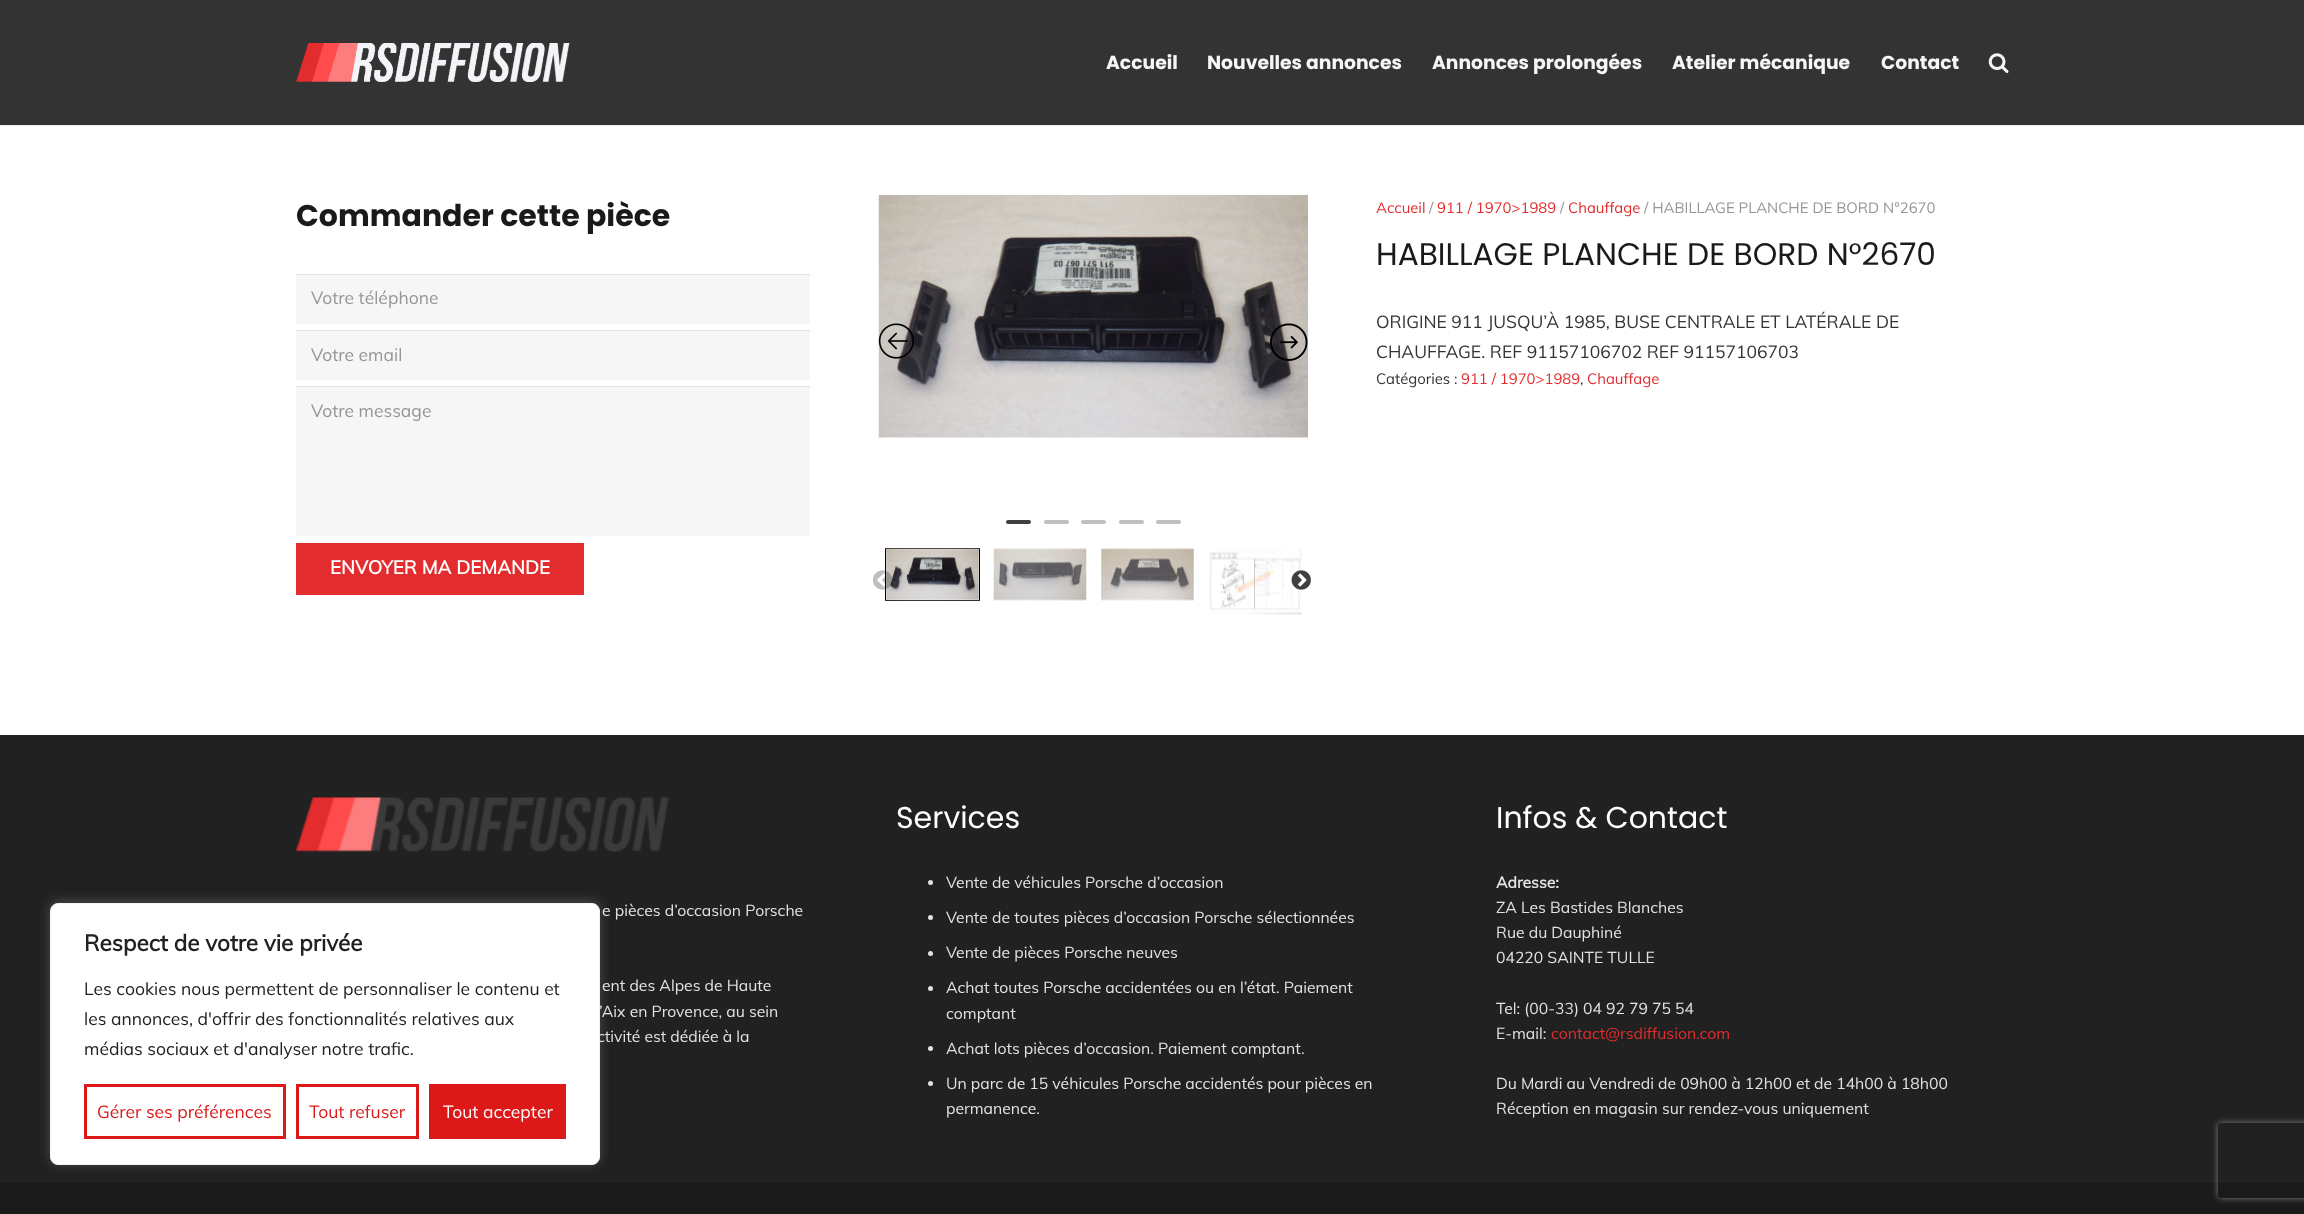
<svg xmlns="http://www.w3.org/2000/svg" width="2304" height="1214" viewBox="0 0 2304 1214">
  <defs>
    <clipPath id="clip1"><path d="M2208 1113H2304V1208H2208ZM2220.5 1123H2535.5C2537 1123 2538 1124 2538 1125.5V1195.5C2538 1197 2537 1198 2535.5 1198H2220.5C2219 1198 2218 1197 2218 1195.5V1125.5C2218 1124 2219 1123 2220.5 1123Z" clip-rule="evenodd"/></clipPath>
  </defs>
  <rect width="100%" height="100%" fill="#fff"/>
  <path d="M0 125h2304v1H0z" fill="#ebebeb"/>
  <path d="M0 0h2304v125H0z" fill="#333"/>
  <image x="296" y="43" width="274" height="39" href="img/1.png"/>
  <image x="1988" y="53" width="21" height="20" href="img/2.png"/>
  <path d="M296 275h514v49H296z" fill="#f6f6f6"/>
  <path d="M296 274h514v1H296z" fill="#e2e2e2"/>
  <path d="M296 331h514v49H296z" fill="#f6f6f6"/>
  <path d="M296 330h514v1H296z" fill="#e2e2e2"/>
  <path d="M296 387h514v149H296z" fill="#f6f6f6"/>
  <path d="M296 386h514v1H296z" fill="#e2e2e2"/>
  <path d="M296 543h288v52H296z" fill="#e32c2d"/>
  <image x="878" y="195" width="430" height="243" href="img/3.png"/>
  <image x="878" y="323" width="36" height="36" href="img/4.png"/>
  <image x="1270" y="323" width="38" height="38" href="img/5.png"/>
  <rect x="1006" y="520" width="25" height="4" rx="2" fill="#404040"/>
  <rect x="1044" y="520" width="25" height="4" rx="2" fill="#bfbfbf"/>
  <rect x="1081" y="520" width="25" height="4" rx="2" fill="#bfbfbf"/>
  <rect x="1119" y="520" width="25" height="4" rx="2" fill="#bfbfbf"/>
  <rect x="1156" y="520" width="25" height="4" rx="2" fill="#bfbfbf"/>
  <path d="M885.5 548.5h94v52H885.5z" fill="none" stroke="#000"/>
  <image x="886" y="548" width="93" height="53" href="img/7.png"/>
  <image x="872" y="570" width="20" height="20" href="img/6.png"/>
  <image x="993" y="548" width="94" height="53" href="img/8.png"/>
  <image x="1101" y="548" width="93" height="53" href="img/9.png"/>
  <image x="1209" y="548" width="93" height="67" href="img/10.png"/>
  <image x="1291" y="570" width="20" height="20" href="img/11.png"/>
  <path d="M0 735h2304v448H0z" fill="#212121"/>
  <rect x="50" y="901" width="550" height="263" rx="8" fill="#acabab4d" filter="blur(6px)"/>
  <image x="296" y="797" width="373" height="55" href="img/12.png"/>
  <circle cx="930.5" cy="882.5" r="2.5" fill="#e2e2e2"/>
  <circle cx="930.5" cy="917.5" r="2.5" fill="#e2e2e2"/>
  <circle cx="930.5" cy="953.5" r="2.5" fill="#e2e2e2"/>
  <circle cx="930.5" cy="988.5" r="2.5" fill="#e2e2e2"/>
  <circle cx="930.5" cy="1048.5" r="2.5" fill="#e2e2e2"/>
  <circle cx="930.5" cy="1083.5" r="2.5" fill="#e2e2e2"/>
  <path d="M0 1183h2304v31H0z" fill="#1a1a1a"/>
  <g clip-path="url(#clip1)">
    <rect x="2218" y="1123" width="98" height="75" rx="2.5" fill="#808080" filter="blur(3px)"/>
  </g>
  <g font-family="Poppins" font-size="18.75" font-weight="bold" fill="#f6f6f6">
    <text x="1106" y="69">Accueil</text>
    <text x="1207" y="69">Nouvelles annonces</text>
    <text x="1432" y="69">Annonces prolongées</text>
    <text x="1672" y="69">Atelier mécanique</text>
    <text x="1881" y="69">Contact</text>
  </g>
  <text x="296" y="226" font-family="Poppins" font-size="30" font-weight="bold" fill="#1a1a1a">Commander cette pièce</text>
  <g font-family="Muli" font-size="17.5" fill="#959595">
    <text x="311" y="304">Votre téléphone</text>
    <text x="311" y="361">Votre email</text>
    <text x="311" y="417">Votre message</text>
  </g>
  <text x="330" y="574" font-family="Muli" font-size="18.75" font-weight="bold" fill="#fff">ENVOYER MA DEMANDE</text>
  <text x="1376" y="213" font-family="Muli" font-size="14.9" fill="#e32c2d">Accueil</text>
  <text x="1429" y="213" font-family="Muli" font-size="14.9" fill="#959595">/</text>
  <text x="1437" y="213" font-family="Muli" font-size="14.9" fill="#e32c2d">911 / 1970&gt;1989</text>
  <text x="1560" y="213" font-family="Muli" font-size="14.9" fill="#959595">/</text>
  <text x="1568" y="213" font-family="Muli" font-size="14.9" fill="#e32c2d">Chauffage</text>
  <text x="1644" y="213" font-family="Muli" font-size="14.9" fill="#959595">/ HABILLAGE PLANCHE DE BORD N°2670</text>
  <text x="1376" y="265" font-family="Poppins" font-size="31.25" fill="#1a1a1a">HABILLAGE PLANCHE DE BORD N°2670</text>
  <g font-family="Muli" font-size="17.5" fill="#333">
    <text x="1376" y="328">ORIGINE 911 JUSQU’À 1985, BUSE CENTRALE ET LATÉRALE DE</text>
    <text x="1376" y="358">CHAUFFAGE. REF 91157106702 REF 91157106703</text>
  </g>
  <text x="1376" y="384" font-family="Muli" font-size="14.9" fill="#333">Catégories :</text>
  <text x="1461" y="384" font-family="Muli" font-size="14.9" fill="#e32c2d">911 / 1970&gt;1989</text>
  <text x="1580" y="384" font-family="Muli" font-size="14.9" fill="#333">,</text>
  <text x="1587" y="384" font-family="Muli" font-size="14.9" fill="#e32c2d">Chauffage</text>
  <g font-family="Muli" font-size="15.75" fill="#e2e2e2">
    <text x="602" y="916">e pièces d’occasion Porsche</text>
    <text x="602" y="991">ent des Alpes de Haute</text>
    <text x="599" y="1017">’Aix en Provence, au sein</text>
    <text x="597" y="1042">ctivité est dédiée à la</text>
  </g>
  <rect x="50.5" y="903.5" width="549" height="261" rx="7.5" fill="#fff" stroke="#f4f4f4"/>
  <path d="M429 1084h137v55H429z" fill="#dc1818"/>
  <text x="443" y="1118" font-family="Muli" font-size="17.5" fill="#fff">Tout accepter</text>
  <path d="M297.5 1085.5h120v52H297.5z" fill="none" stroke="#dc1818" stroke-width="3"/>
  <text x="309" y="1118" font-family="Muli" font-size="17.5" fill="#dc1818">Tout refuser</text>
  <path d="M85.5 1085.5h199v52H85.5z" fill="none" stroke="#dc1818" stroke-width="3"/>
  <text x="97" y="1118" font-family="Muli" font-size="17.5" fill="#dc1818">Gérer ses préférences</text>
  <g font-family="Muli" font-size="17.5" fill="#212121">
    <text x="84" y="1055">médias sociaux et d'analyser notre trafic.</text>
    <text x="84" y="1025">les annonces, d'offrir des fonctionnalités relatives aux</text>
    <text x="84" y="995">Les cookies nous permettent de personnaliser le contenu et</text>
  </g>
  <text x="84" y="951" font-family="Muli" font-size="22.5" font-weight="bold" fill="#212121">Respect de votre vie privée</text>
  <text x="896" y="828" font-family="Poppins" font-size="30" fill="#fff">Services</text>
  <g font-family="Muli" font-size="15.75" fill="#e2e2e2">
    <text x="946" y="888">Vente de véhicules Porsche d’occasion</text>
    <text x="946" y="923">Vente de toutes pièces d’occasion Porsche sélectionnées</text>
    <text x="946" y="958">Vente de pièces Porsche neuves</text>
    <text x="946" y="993">Achat toutes Porsche accidentées ou en l’état. Paiement</text>
    <text x="946" y="1019">comptant</text>
    <text x="946" y="1054">Achat lots pièces d’occasion. Paiement comptant.</text>
    <text x="946" y="1089">Un parc de 15 véhicules Porsche accidentés pour pièces en</text>
    <text x="946" y="1114">permanence.</text>
  </g>
  <text x="1496" y="828" font-family="Poppins" font-size="30" fill="#fff">Infos &amp; Contact</text>
  <text x="1496" y="888" font-family="Muli" font-size="15.75" font-weight="bold" fill="#e2e2e2">Adresse:</text>
  <g font-family="Muli" font-size="15.75" fill="#e2e2e2">
    <text x="1496" y="913">ZA Les Bastides Blanches</text>
    <text x="1496" y="938">Rue du Dauphiné</text>
    <text x="1496" y="963">04220 SAINTE TULLE</text>
    <text x="1496" y="1014">Tel: (00-33) 04 92 79 75 54</text>
    <text x="1496" y="1039">E-mail:</text>
  </g>
  <text x="1551" y="1039" font-family="Muli" font-size="15.75" fill="#e32c2d">contact@rsdiffusion.com</text>
  <g font-family="Muli" font-size="15.75" fill="#e2e2e2">
    <text x="1496" y="1089">Du Mardi au Vendredi de 09h00 à 12h00 et de 14h00 à 18h00</text>
    <text x="1496" y="1114">Réception en magasin sur rendez-vous uniquement</text>
  </g>
</svg>
